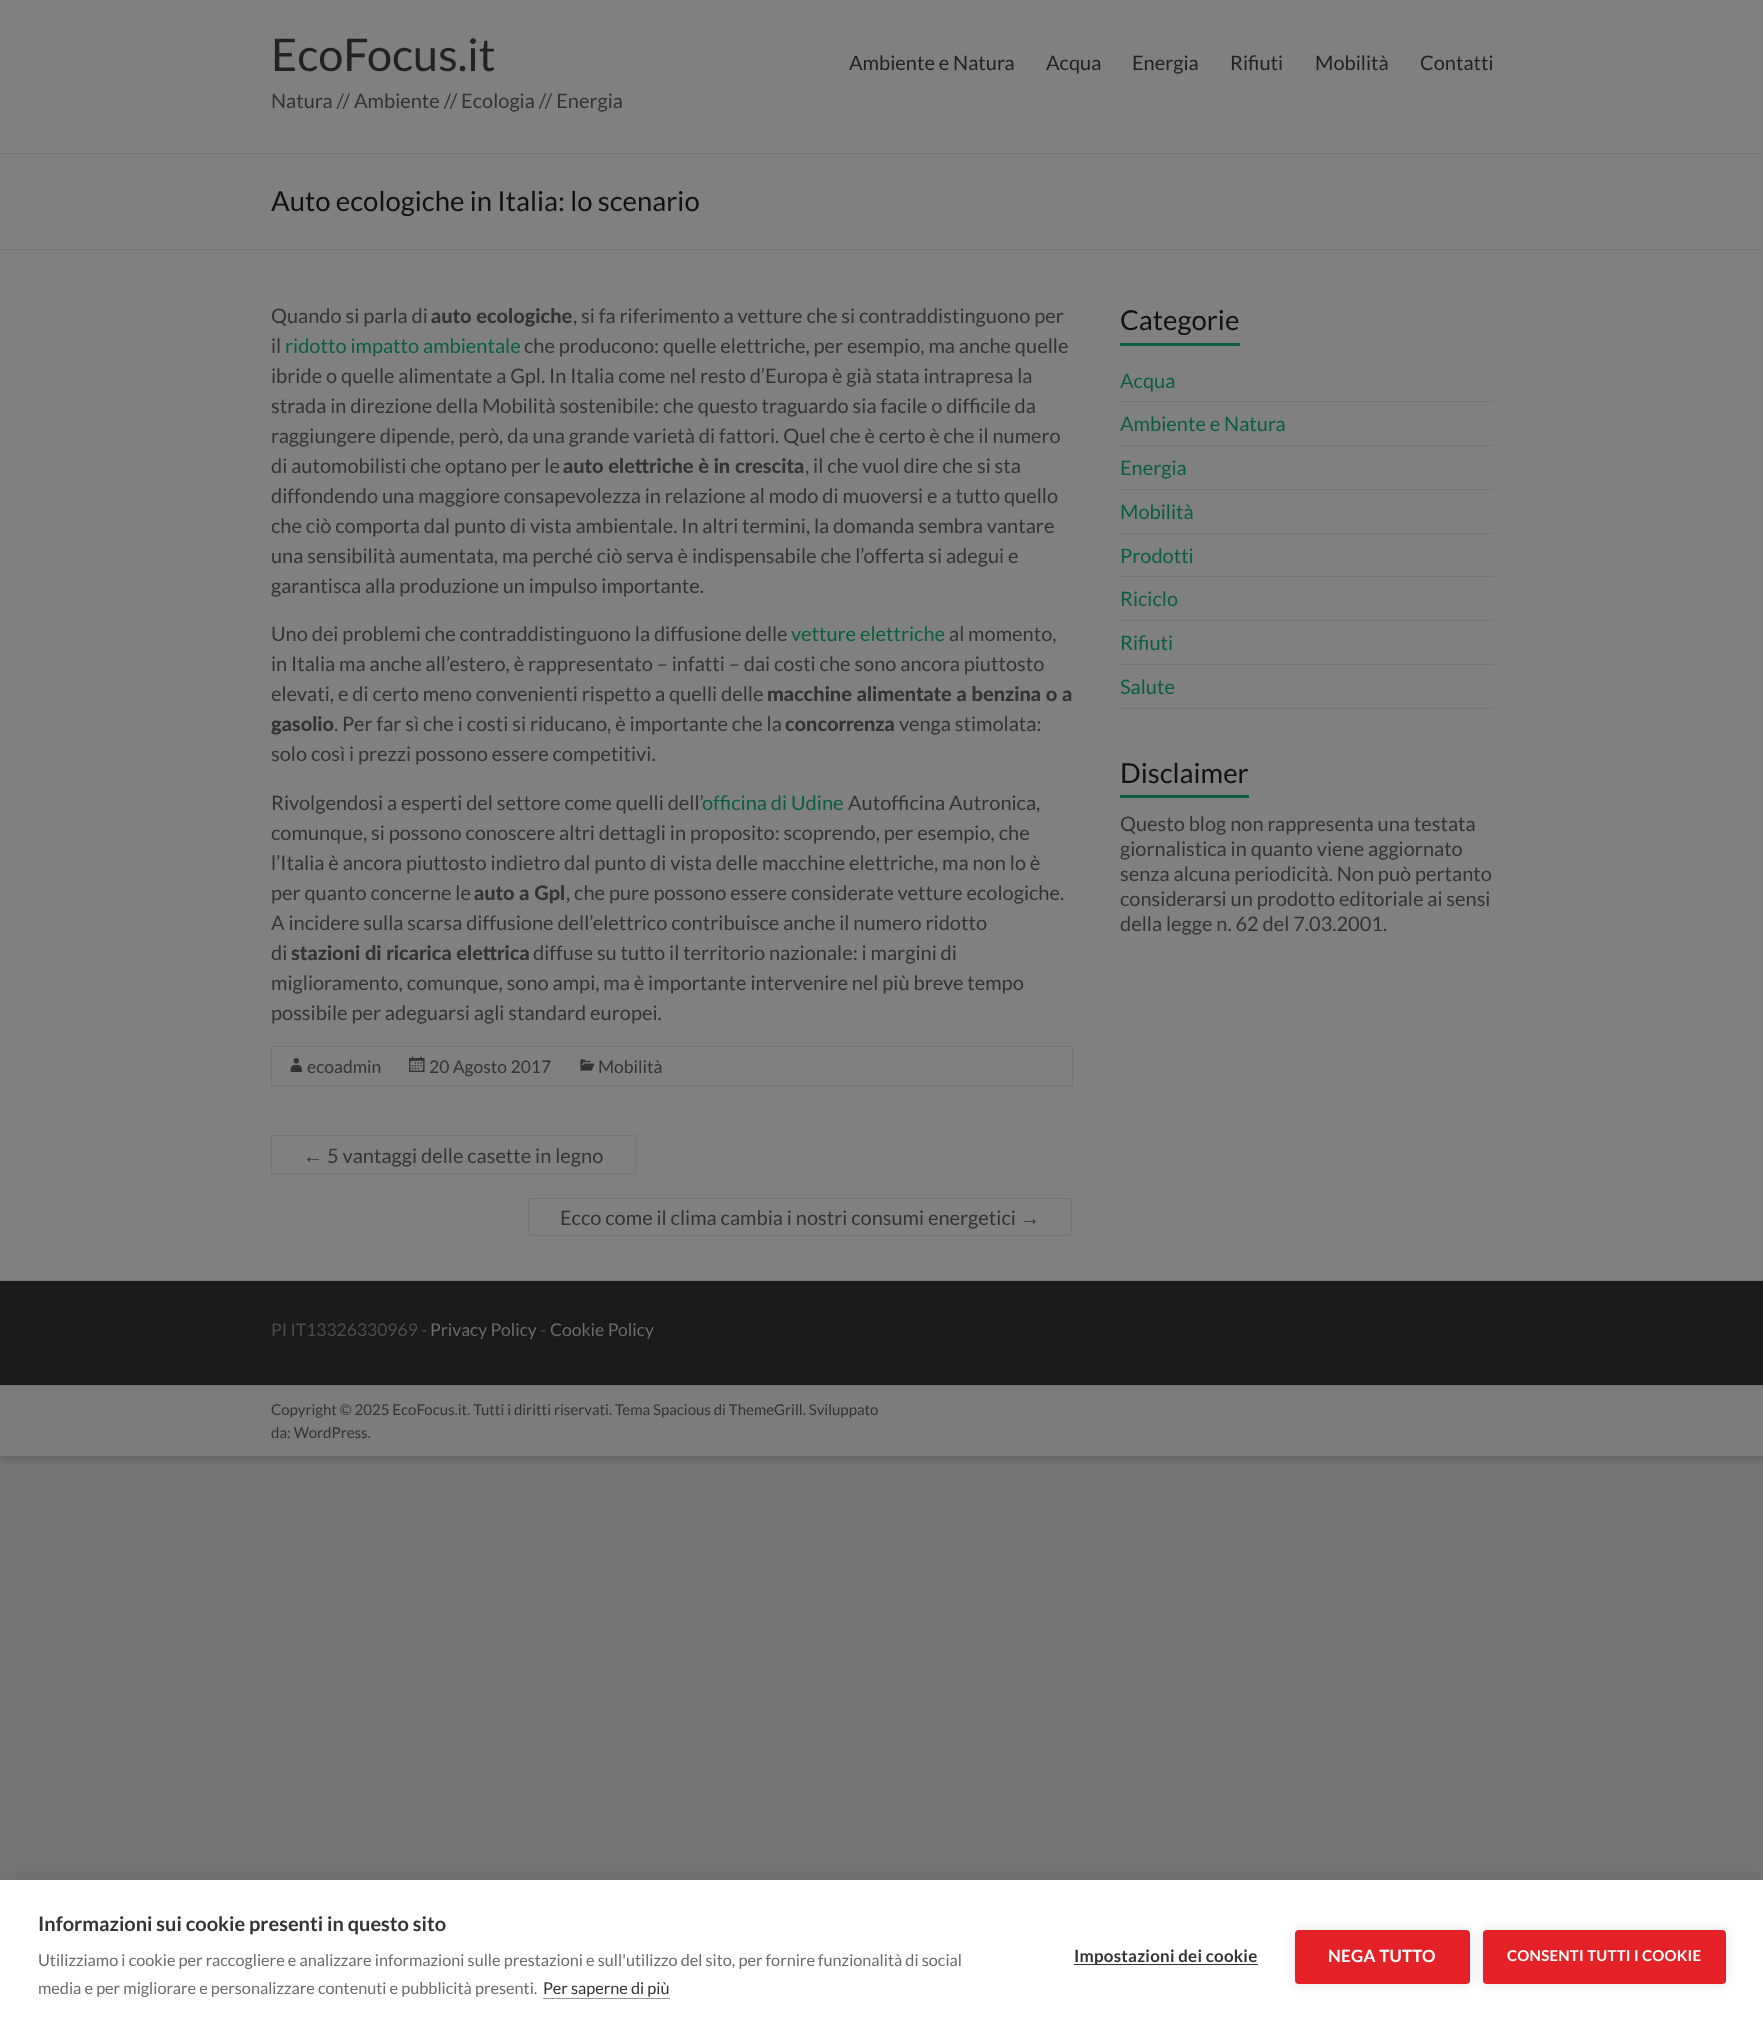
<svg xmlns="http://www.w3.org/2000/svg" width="1763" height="2032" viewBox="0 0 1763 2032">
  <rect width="100%" height="100%" fill="#757575"/>
  <path d="M0 3h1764v1456H0z" fill="#3232324d" filter="blur(4px)"/>
  <path d="M0 0h1763v1280H0z" fill="#808080"/>
  <path d="M0 153h1763v1H0z" fill="#757575"/>
  <path d="M0 249h1763v1H0z" fill="#757575"/>
  <path d="M271.5 1046.5h801v39H271.5z" fill="none" stroke="#757575"/>
  <image x="290" y="1058" width="12" height="14" href="img/1.png"/>
  <image x="409" y="1056" width="16" height="16" href="img/2.png"/>
  <image x="580" y="1059" width="15" height="12" href="img/3.png"/>
  <path d="M271 1173h53v1H271z" fill="#757575"/>
  <path d="M271 1135h365v1H271z" fill="#757575"/>
  <path d="M271 1135h1v39H271z" fill="#757575"/>
  <path d="M635 1135h1v39H635z" fill="#757575"/>
  <path d="M324 1173h312v1H324z" fill="#757575"/>
  <path d="M528 1198h545v1H528z" fill="#757575"/>
  <path d="M528 1235h492v1H528z" fill="#757575"/>
  <path d="M528 1198h1v38H528z" fill="#757575"/>
  <path d="M1071 1198h1v38H1071z" fill="#757575"/>
  <path d="M1020 1235h53v1H1020z" fill="#757575"/>
  <path d="M1120 343h120v3H1120z" fill="#085f3e"/>
  <path d="M1120 401h374v1H1120z" fill="#757575"/>
  <path d="M1120 445h374v1H1120z" fill="#757575"/>
  <path d="M1120 489h374v1H1120z" fill="#757575"/>
  <path d="M1120 533h374v1H1120z" fill="#757575"/>
  <path d="M1120 576h374v1H1120z" fill="#757575"/>
  <path d="M1120 620h374v1H1120z" fill="#757575"/>
  <path d="M1120 664h374v1H1120z" fill="#757575"/>
  <path d="M1120 708h374v1H1120z" fill="#757575"/>
  <path d="M1120 795h129v3H1120z" fill="#085f3e"/>
  <path d="M0 1281h1763v104H0z" fill="#1a1a1a"/>
  <path d="M0 1280h1763v1H0z" fill="#757575"/>
  <path d="M0 1386h1763v70H0z" fill="#7c7c7c"/>
  <path d="M0 1385h1763v1H0z" fill="#757575"/>
  <path d="M0 1880h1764v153H0z" fill="#0000001a" filter="blur(12.5px)"/>
  <path d="M0 1880h1763v152H0z" fill="#fff"/>
  <path d="M543 1998h127v1H543z" fill="#999"/>
  <path d="M1074 1964h184v1H1074z" fill="#333"/>
  <rect x="1295" y="1930" width="175" height="54" rx="4" fill="#0000001f" filter="blur(6px)"/>
  <rect x="1295" y="1930" width="175" height="54" rx="4" fill="#e42127"/>
  <rect x="1483" y="1930" width="243" height="54" rx="4" fill="#0000001f" filter="blur(6px)"/>
  <rect x="1483" y="1930" width="243" height="54" rx="4" fill="#e42127"/>
  <text x="271" y="71" font-family="Lato" font-size="45" fill="#222">EcoFocus.it</text>
  <text x="271" y="108" font-family="Lato" font-size="20" fill="#333">Natura // Ambiente // Ecologia // Energia</text>
  <g font-family="Lato" font-size="20" fill="#222">
    <text x="849" y="70">Ambiente e Natura</text>
    <text x="1046" y="70">Acqua</text>
    <text x="1132" y="70">Energia</text>
    <text x="1230" y="70">Rifiuti</text>
    <text x="1315" y="70">Mobilità</text>
    <text x="1420" y="70">Contatti</text>
  </g>
  <text x="271" y="211" font-family="Lato" font-size="27.5" fill="#111">Auto ecologiche in Italia: lo scenario</text>
  <text x="271" y="323" font-family="Lato" font-size="20" fill="#333">Quando si parla di</text>
  <text x="431" y="323" font-family="Lato" font-size="20" font-weight="900" fill="#333">auto ecologiche</text>
  <g font-family="Lato" font-size="20" fill="#333">
    <text x="573" y="323">, si fa riferimento a vetture che si contraddistinguono per</text>
    <text x="271" y="353">il</text>
  </g>
  <text x="285" y="353" font-family="Lato" font-size="20" fill="#085f3e">ridotto impatto ambientale</text>
  <g font-family="Lato" font-size="20" fill="#333">
    <text x="524" y="353">che producono: quelle elettriche, per esempio, ma anche quelle</text>
    <text x="271" y="383">ibride o quelle alimentate a Gpl. In Italia come nel resto d’Europa è già stata intrapresa la</text>
    <text x="271" y="413">strada in direzione della Mobilità sostenibile: che questo traguardo sia facile o difficile da</text>
    <text x="271" y="443">raggiungere dipende, però, da una grande varietà di fattori. Quel che è certo è che il numero</text>
    <text x="271" y="473">di automobilisti che optano per le</text>
  </g>
  <text x="563" y="473" font-family="Lato" font-size="20" font-weight="900" fill="#333">auto elettriche è in crescita</text>
  <g font-family="Lato" font-size="20" fill="#333">
    <text x="805" y="473">, il che vuol dire che si sta</text>
    <text x="271" y="503">diffondendo una maggiore consapevolezza in relazione al modo di muoversi e a tutto quello</text>
    <text x="271" y="533">che ciò comporta dal punto di vista ambientale. In altri termini, la domanda sembra vantare</text>
    <text x="271" y="563">una sensibilità aumentata, ma perché ciò serva è indispensabile che l’offerta si adegui e</text>
    <text x="271" y="593">garantisca alla produzione un impulso importante.</text>
    <text x="271" y="641">Uno dei problemi che contraddistinguono la diffusione delle</text>
  </g>
  <text x="791" y="641" font-family="Lato" font-size="20" fill="#085f3e">vetture elettriche</text>
  <g font-family="Lato" font-size="20" fill="#333">
    <text x="949" y="641">al momento,</text>
    <text x="271" y="671">in Italia ma anche all’estero, è rappresentato – infatti – dai costi che sono ancora piuttosto</text>
    <text x="271" y="701">elevati, e di certo meno convenienti rispetto a quelli delle</text>
  </g>
  <g font-family="Lato" font-size="20" font-weight="900" fill="#333">
    <text x="767" y="701">macchine alimentate a benzina o a</text>
    <text x="271" y="731">gasolio</text>
  </g>
  <text x="334" y="731" font-family="Lato" font-size="20" fill="#333">. Per far sì che i costi si riducano, è importante che la</text>
  <text x="785" y="731" font-family="Lato" font-size="20" font-weight="900" fill="#333">concorrenza</text>
  <g font-family="Lato" font-size="20" fill="#333">
    <text x="899" y="731">venga stimolata:</text>
    <text x="271" y="761">solo così i prezzi possono essere competitivi.</text>
    <text x="271" y="810">Rivolgendosi a esperti del settore come quelli dell’</text>
  </g>
  <text x="702" y="810" font-family="Lato" font-size="20" fill="#085f3e">officina di Udine</text>
  <g font-family="Lato" font-size="20" fill="#333">
    <text x="848" y="810">Autofficina Autronica,</text>
    <text x="271" y="840">comunque, si possono conoscere altri dettagli in proposito: scoprendo, per esempio, che</text>
    <text x="271" y="870">l’Italia è ancora piuttosto indietro dal punto di vista delle macchine elettriche, ma non lo è</text>
    <text x="271" y="900">per quanto concerne le</text>
  </g>
  <text x="474" y="900" font-family="Lato" font-size="20" font-weight="900" fill="#333">auto a Gpl</text>
  <g font-family="Lato" font-size="20" fill="#333">
    <text x="566" y="900">, che pure possono essere considerate vetture ecologiche.</text>
    <text x="271" y="930">A incidere sulla scarsa diffusione dell’elettrico contribuisce anche il numero ridotto</text>
    <text x="271" y="960">di</text>
  </g>
  <text x="291" y="960" font-family="Lato" font-size="20" font-weight="900" fill="#333">stazioni di ricarica elettrica</text>
  <g font-family="Lato" font-size="20" fill="#333">
    <text x="533" y="960">diffuse su tutto il territorio nazionale: i margini di</text>
    <text x="271" y="990">miglioramento, comunque, sono ampi, ma è importante intervenire nel più breve tempo</text>
    <text x="271" y="1020">possibile per adeguarsi agli standard europei.</text>
  </g>
  <g font-family="Lato" font-size="17.5" fill="#333">
    <text x="307" y="1073">ecoadmin</text>
    <text x="429" y="1073">20 Agosto 2017</text>
    <text x="598" y="1073">Mobilità</text>
  </g>
  <text x="303" y="1163" font-family="Liberation Sans" font-size="20" fill="#333">←</text>
  <g font-family="Lato" font-size="20" fill="#333">
    <text x="327" y="1163">5 vantaggi delle casette in legno</text>
    <text x="560" y="1225">Ecco come il clima cambia i nostri consumi energetici</text>
  </g>
  <text x="1020" y="1225" font-family="Liberation Sans" font-size="20" fill="#333">→</text>
  <text x="1120" y="330" font-family="Lato" font-size="27.5" fill="#111">Categorie</text>
  <g font-family="Lato" font-size="20" fill="#085f3e">
    <text x="1120" y="388">Acqua</text>
    <text x="1120" y="431">Ambiente e Natura</text>
    <text x="1120" y="475">Energia</text>
    <text x="1120" y="519">Mobilità</text>
    <text x="1120" y="563">Prodotti</text>
    <text x="1120" y="606">Riciclo</text>
    <text x="1120" y="650">Rifiuti</text>
    <text x="1120" y="694">Salute</text>
  </g>
  <text x="1120" y="783" font-family="Lato" font-size="27.5" fill="#111">Disclaimer</text>
  <g font-family="Lato" font-size="20" fill="#333">
    <text x="1120" y="831">Questo blog non rappresenta una testata</text>
    <text x="1120" y="856">giornalistica in quanto viene aggiornato</text>
    <text x="1120" y="881">senza alcuna periodicità. Non può pertanto</text>
    <text x="1120" y="906">considerarsi un prodotto editoriale ai sensi</text>
    <text x="1120" y="931">della legge n. 62 del 7.03.2001.</text>
  </g>
  <text x="271" y="1336" font-family="Lato" font-size="17.5" fill="#4d4d4d">PI IT13326330969 -</text>
  <text x="430" y="1336" font-family="Lato" font-size="17.5" fill="#6b6b6b">Privacy Policy</text>
  <text x="540" y="1336" font-family="Lato" font-size="17.5" fill="#4d4d4d">-</text>
  <text x="550" y="1336" font-family="Lato" font-size="17.5" fill="#6b6b6b">Cookie Policy</text>
  <g font-family="Lato" font-size="15" fill="#333">
    <text x="271" y="1415">Copyright © 2025 EcoFocus.it. Tutti i diritti riservati. Tema Spacious di ThemeGrill. Sviluppato</text>
    <text x="271" y="1438">da: WordPress.</text>
  </g>
  <text x="38" y="1931" font-family="Lato" font-size="20" font-weight="bold" fill="#333">Informazioni sui cookie presenti in questo sito</text>
  <g font-family="Lato" font-size="16.25" fill="#6b6b6b">
    <text x="38" y="1966">Utilizziamo i cookie per raccogliere e analizzare informazioni sulle prestazioni e sull'utilizzo del sito, per fornire funzionalità di social</text>
    <text x="38" y="1994">media e per migliorare e personalizzare contenuti e pubblicità presenti.</text>
  </g>
  <text x="543" y="1994" font-family="Lato" font-size="16.25" fill="#333">Per saperne di più</text>
  <text x="1074" y="1962" font-family="Lato" font-size="16.9" font-weight="bold" letter-spacing="0.25" fill="#333">Impostazioni dei cookie</text>
  <text x="1328" y="1962" font-family="Lato" font-size="16.9" font-weight="bold" letter-spacing="0.25" fill="#fff">NEGA TUTTO</text>
  <text x="1507" y="1961" font-family="Lato" font-size="15" font-weight="bold" letter-spacing="0.25" fill="#fff">CONSENTI TUTTI I COOKIE</text>
</svg>
